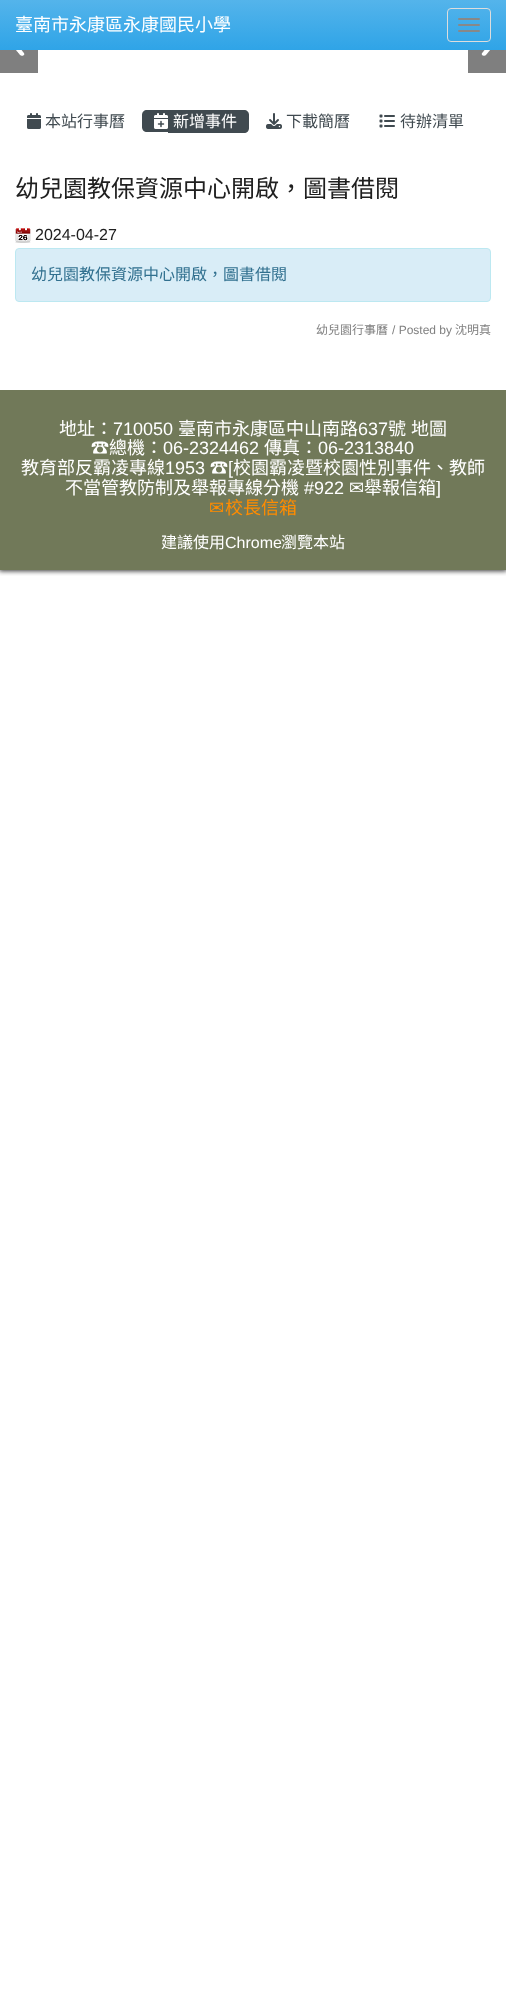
<svg xmlns="http://www.w3.org/2000/svg" width="506" height="2011" viewBox="0 0 506 2011">
  <defs>
    <clipPath id="clip1"><path d="M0 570h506v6H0z"/></clipPath>
    <linearGradient id="g1" gradientUnits="userSpaceOnUse" x1="253" y1="0" x2="253" y2="50"><stop offset="0" stop-color="#54b4eb"/><stop offset="1" stop-color="#2fa4e7"/></linearGradient>
  </defs>
  <rect width="100%" height="100%" fill="#fff"/>
  <g clip-path="url(#clip1)">
    <path d="M-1 -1h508v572H-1z" fill="#333" filter="blur(2.5px)"/>
  </g>
  <path d="M0 0h506v50H0z" fill="url(#g1)"/>
  <rect x="447.5" y="8.5" width="43" height="33" rx="3.5" fill="none" stroke="#ddd"/>
  <rect x="458" y="18" width="22" height="2" rx="1" fill="#888"/>
  <rect x="458" y="24" width="22" height="2" rx="1" fill="#888"/>
  <rect x="458" y="30" width="22" height="2" rx="1" fill="#888"/>
  <image x="0" y="50" width="38" height="23" href="img/1.png"/>
  <image x="468" y="50" width="38" height="23" href="img/2.png"/>
  <image x="27" y="113" width="14" height="16" href="img/3.png"/>
  <path d="M147 110H168V132H147C144 132 142 130 142 127V115C142 112 144 110 147 110Z" fill="#404a50"/>
  <path d="M168 110H244C247 110 249 112 249 115V128C249 131 247 133 244 133H168Z" fill="#404a50"/>
  <image x="154" y="113" width="14" height="16" href="img/4.png"/>
  <image x="266" y="113" width="16" height="16" href="img/5.png"/>
  <image x="379" y="114" width="16" height="14" href="img/6.png"/>
  <image x="15" y="227" width="16" height="16" href="img/7.png"/>
  <rect x="15.5" y="248.5" width="475" height="53" rx="3.5" fill="#d9edf7" stroke="#bce8f1"/>
  <path d="M0 390h506v180H0z" fill="#717959"/>
  <text x="15" y="31" font-family="Noto Sans CJK TC" font-size="18" fill="#fff">臺南市永康區永康國民小學</text>
  <text x="45" y="127" font-family="Noto Sans CJK TC" font-size="16" fill="#404a50">本站行事曆</text>
  <text x="173" y="127" font-family="Noto Sans CJK TC" font-size="16" fill="#fff">新增事件</text>
  <g font-family="Noto Sans CJK TC" font-size="16" fill="#404a50">
    <text x="286" y="127">下載簡曆</text>
    <text x="400" y="127">待辦清單</text>
  </g>
  <text x="15" y="197" font-family="Noto Sans CJK TC" font-size="24" fill="#202020">幼兒園教保資源中心開啟，圖書借閱</text>
  <text x="35" y="240" font-family="Liberation Sans" font-size="16" fill="#202020">2024-04-27</text>
  <text x="31" y="280" font-family="Noto Sans CJK TC" font-size="16" fill="#31708f">幼兒園教保資源中心開啟，圖書借閱</text>
  <text x="316" y="334" font-family="Noto Sans CJK TC" font-size="12" fill="#808080">幼兒園行事曆</text>
  <text x="392" y="334" font-family="Liberation Sans" font-size="12" fill="#808080">/ Posted by</text>
  <text x="455" y="334" font-family="Noto Sans CJK TC" font-size="12" fill="#808080">沈明真</text>
  <text x="59" y="435" font-family="Noto Sans CJK TC" font-size="18" fill="#fff">地址：</text>
  <text x="113" y="435" font-family="Liberation Sans" font-size="18" fill="#fff">710050</text>
  <text x="178" y="435" font-family="Noto Sans CJK TC" font-size="18" fill="#fff">臺南市永康區中山南路</text>
  <text x="358" y="435" font-family="Liberation Sans" font-size="18" fill="#fff">637</text>
  <g font-family="Noto Sans CJK TC" font-size="18" fill="#fff">
    <text x="388" y="435">號</text>
    <text x="411" y="435">地圖</text>
    <text x="91" y="454">☎總機：</text>
  </g>
  <text x="163" y="454" font-family="Liberation Sans" font-size="18" fill="#fff">06-2324462</text>
  <text x="264" y="454" font-family="Noto Sans CJK TC" font-size="18" fill="#fff">傳真：</text>
  <text x="318" y="454" font-family="Liberation Sans" font-size="18" fill="#fff">06-2313840</text>
  <text x="21" y="474" font-family="Noto Sans CJK TC" font-size="18" fill="#fff">教育部反霸凌專線</text>
  <text x="165" y="474" font-family="Liberation Sans" font-size="18" fill="#fff">1953</text>
  <text x="210" y="474" font-family="Noto Sans CJK TC" font-size="18" fill="#fff">☎</text>
  <text x="228" y="474" font-family="Liberation Sans" font-size="18" fill="#fff">[</text>
  <g font-family="Noto Sans CJK TC" font-size="18" fill="#fff">
    <text x="233" y="474">校園霸凌暨校園性別事件、教師</text>
    <text x="65" y="494">不當管教防制及舉報專線分機</text>
  </g>
  <text x="304" y="494" font-family="Liberation Sans" font-size="18" fill="#fff">#922</text>
  <text x="349" y="494" font-family="DejaVu Sans" font-size="18" fill="#fff">✉</text>
  <text x="364" y="494" font-family="Noto Sans CJK TC" font-size="18" fill="#fff">舉報信箱</text>
  <text x="436" y="494" font-family="Liberation Sans" font-size="18" fill="#fff">]</text>
  <text x="209" y="514" font-family="DejaVu Sans" font-size="18" fill="#ff8c00">✉</text>
  <text x="225" y="514" font-family="Noto Sans CJK TC" font-size="18" fill="#ff8c00">校長信箱</text>
  <text x="161" y="548" font-family="Noto Sans CJK TC" font-size="16" fill="#fff">建議使用</text>
  <text x="225" y="548" font-family="Liberation Sans" font-size="16" fill="#fff">Chrome</text>
  <text x="281" y="548" font-family="Noto Sans CJK TC" font-size="16" fill="#fff">瀏覽本站</text>
</svg>
